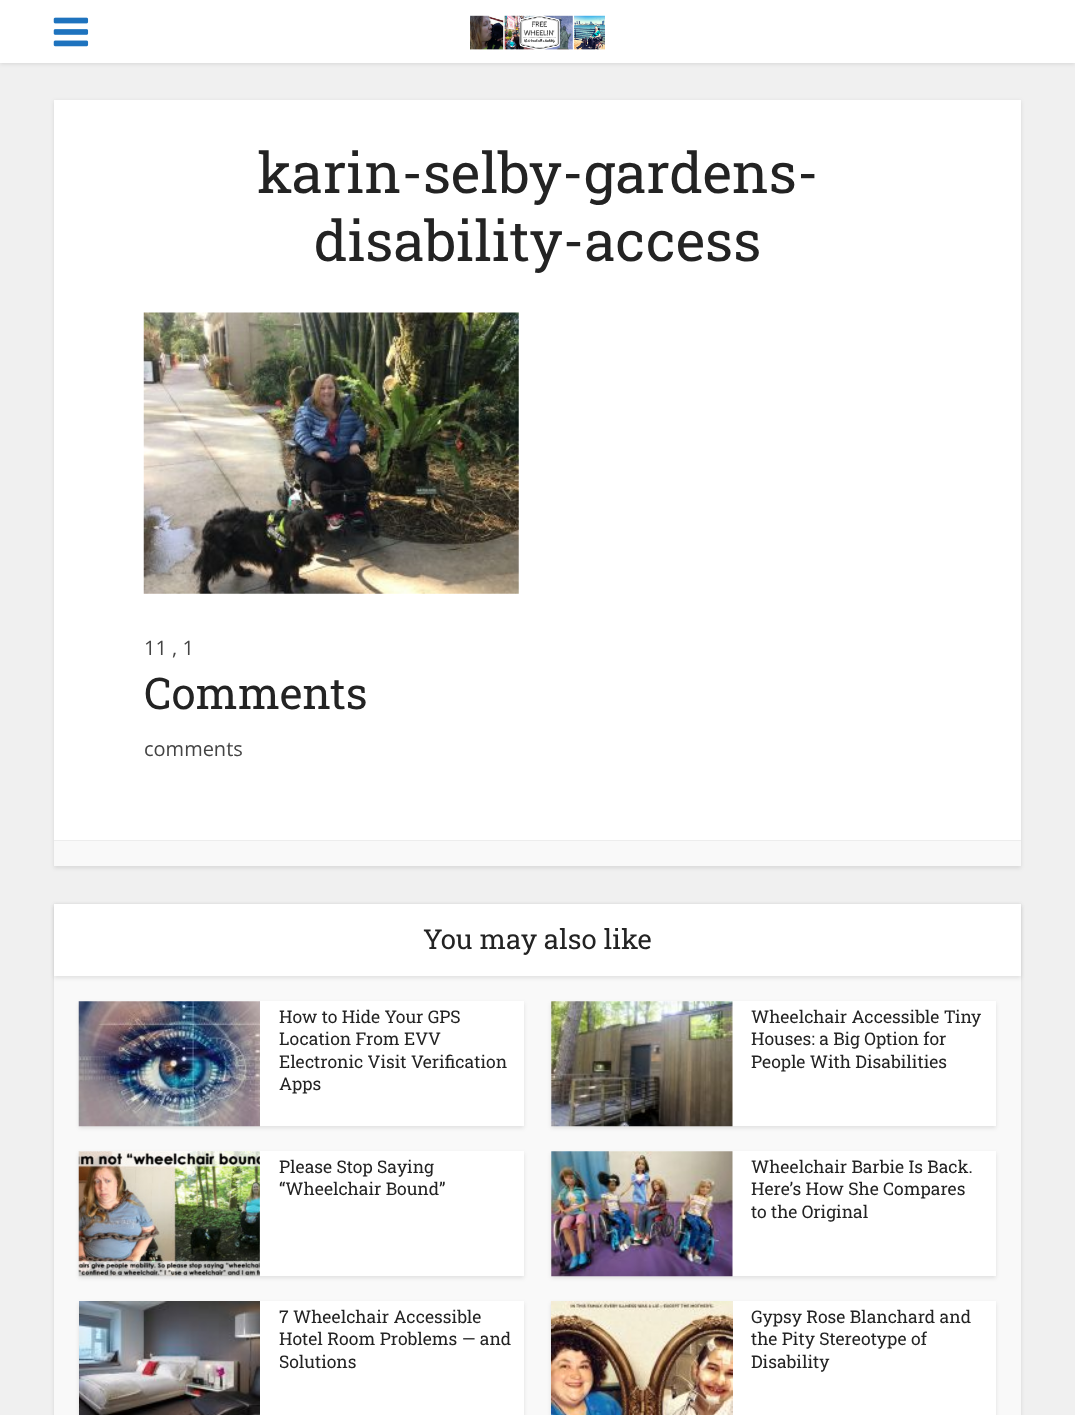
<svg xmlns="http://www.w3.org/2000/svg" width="1075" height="1415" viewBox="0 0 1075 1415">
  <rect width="100%" height="100%" fill="#f0f0f0"/>
  <path d="M0 1h1075v63H0z" fill="#0000001a" filter="blur(2px)"/>
  <path d="M0 0h1075v63H0z" fill="#fff"/>
  <image x="53" y="17" width="36" height="30" href="img/1.png"/>
  <image x="470" y="15" width="135" height="35" href="img/2.png"/>
  <path d="M54 101h967v767H54z" fill="#0000001a" filter="blur(2px)"/>
  <path d="M54 100h967v740H54z" fill="#fff"/>
  <image x="143" y="312" width="376" height="282" href="img/3.png"/>
  <path d="M54 841h967v25H54z" fill="#f9f9f9"/>
  <path d="M54 840h967v1H54z" fill="#ededed"/>
  <path d="M54 905h967v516H54z" fill="#0000001a" filter="blur(2px)"/>
  <path d="M54 976h967v439H54z" fill="#f9f9f9"/>
  <path d="M54 905h967v73H54z" fill="#0000001a" filter="blur(2px)"/>
  <path d="M54 904h967v72H54z" fill="#fff"/>
  <path d="M79 1003h445v125H79z" fill="#0000001a" filter="blur(2px)"/>
  <path d="M79 1001h445v125H79z" fill="#fff"/>
  <image x="78" y="1001" width="182" height="126" href="img/4.png"/>
  <path d="M551 1003h445v125H551z" fill="#0000001a" filter="blur(2px)"/>
  <path d="M551 1001h445v125H551z" fill="#fff"/>
  <image x="551" y="1001" width="182" height="126" href="img/5.png"/>
  <path d="M79 1153h445v125H79z" fill="#0000001a" filter="blur(2px)"/>
  <path d="M79 1151h445v125H79z" fill="#fff"/>
  <image x="78" y="1151" width="182" height="126" href="img/6.png"/>
  <path d="M551 1153h445v125H551z" fill="#0000001a" filter="blur(2px)"/>
  <path d="M551 1151h445v125H551z" fill="#fff"/>
  <image x="551" y="1151" width="182" height="126" href="img/7.png"/>
  <path d="M79 1303h445v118H79z" fill="#0000001a" filter="blur(2px)"/>
  <path d="M260 1301h264v114H260z" fill="#fff"/>
  <image x="79" y="1301" width="181" height="114" href="img/8.png"/>
  <path d="M551 1303h445v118H551z" fill="#0000001a" filter="blur(2px)"/>
  <path d="M733 1301h263v114H733z" fill="#fff"/>
  <image x="551" y="1301" width="182" height="114" href="img/9.png"/>
  <g font-family="Roboto Slab" font-size="56.25" fill="#232323">
    <text x="257" y="193">karin-selby-gardens-</text>
    <text x="314" y="261">disability-access</text>
  </g>
  <text x="144" y="655" font-family="Open Sans" font-size="20" fill="#444">11 , 1</text>
  <text x="144" y="709" font-family="Roboto Slab" font-size="43.75" fill="#232323">Comments</text>
  <text x="144" y="756" font-family="Open Sans" font-size="20" fill="#444">comments</text>
  <text x="423" y="949" font-family="Roboto Slab" font-size="27.5" fill="#232323">You may also like</text>
  <g font-family="Roboto Slab" font-size="17.5" fill="#232323">
    <text x="279" y="1023">How to Hide Your GPS</text>
    <text x="279" y="1045">Location From EVV</text>
    <text x="279" y="1068">Electronic Visit Verification</text>
    <text x="279" y="1090">Apps</text>
    <text x="751" y="1023">Wheelchair Accessible Tiny</text>
    <text x="751" y="1045">Houses: a Big Option for</text>
    <text x="751" y="1068">People With Disabilities</text>
    <text x="279" y="1173">Please Stop Saying</text>
    <text x="279" y="1195">“Wheelchair Bound”</text>
    <text x="751" y="1173">Wheelchair Barbie Is Back.</text>
    <text x="751" y="1195">Here’s How She Compares</text>
    <text x="751" y="1218">to the Original</text>
    <text x="279" y="1323">7 Wheelchair Accessible</text>
    <text x="279" y="1345">Hotel Room Problems — and</text>
    <text x="279" y="1368">Solutions</text>
    <text x="751" y="1323">Gypsy Rose Blanchard and</text>
    <text x="751" y="1345">the Pity Stereotype of</text>
    <text x="751" y="1368">Disability</text>
  </g>
</svg>
